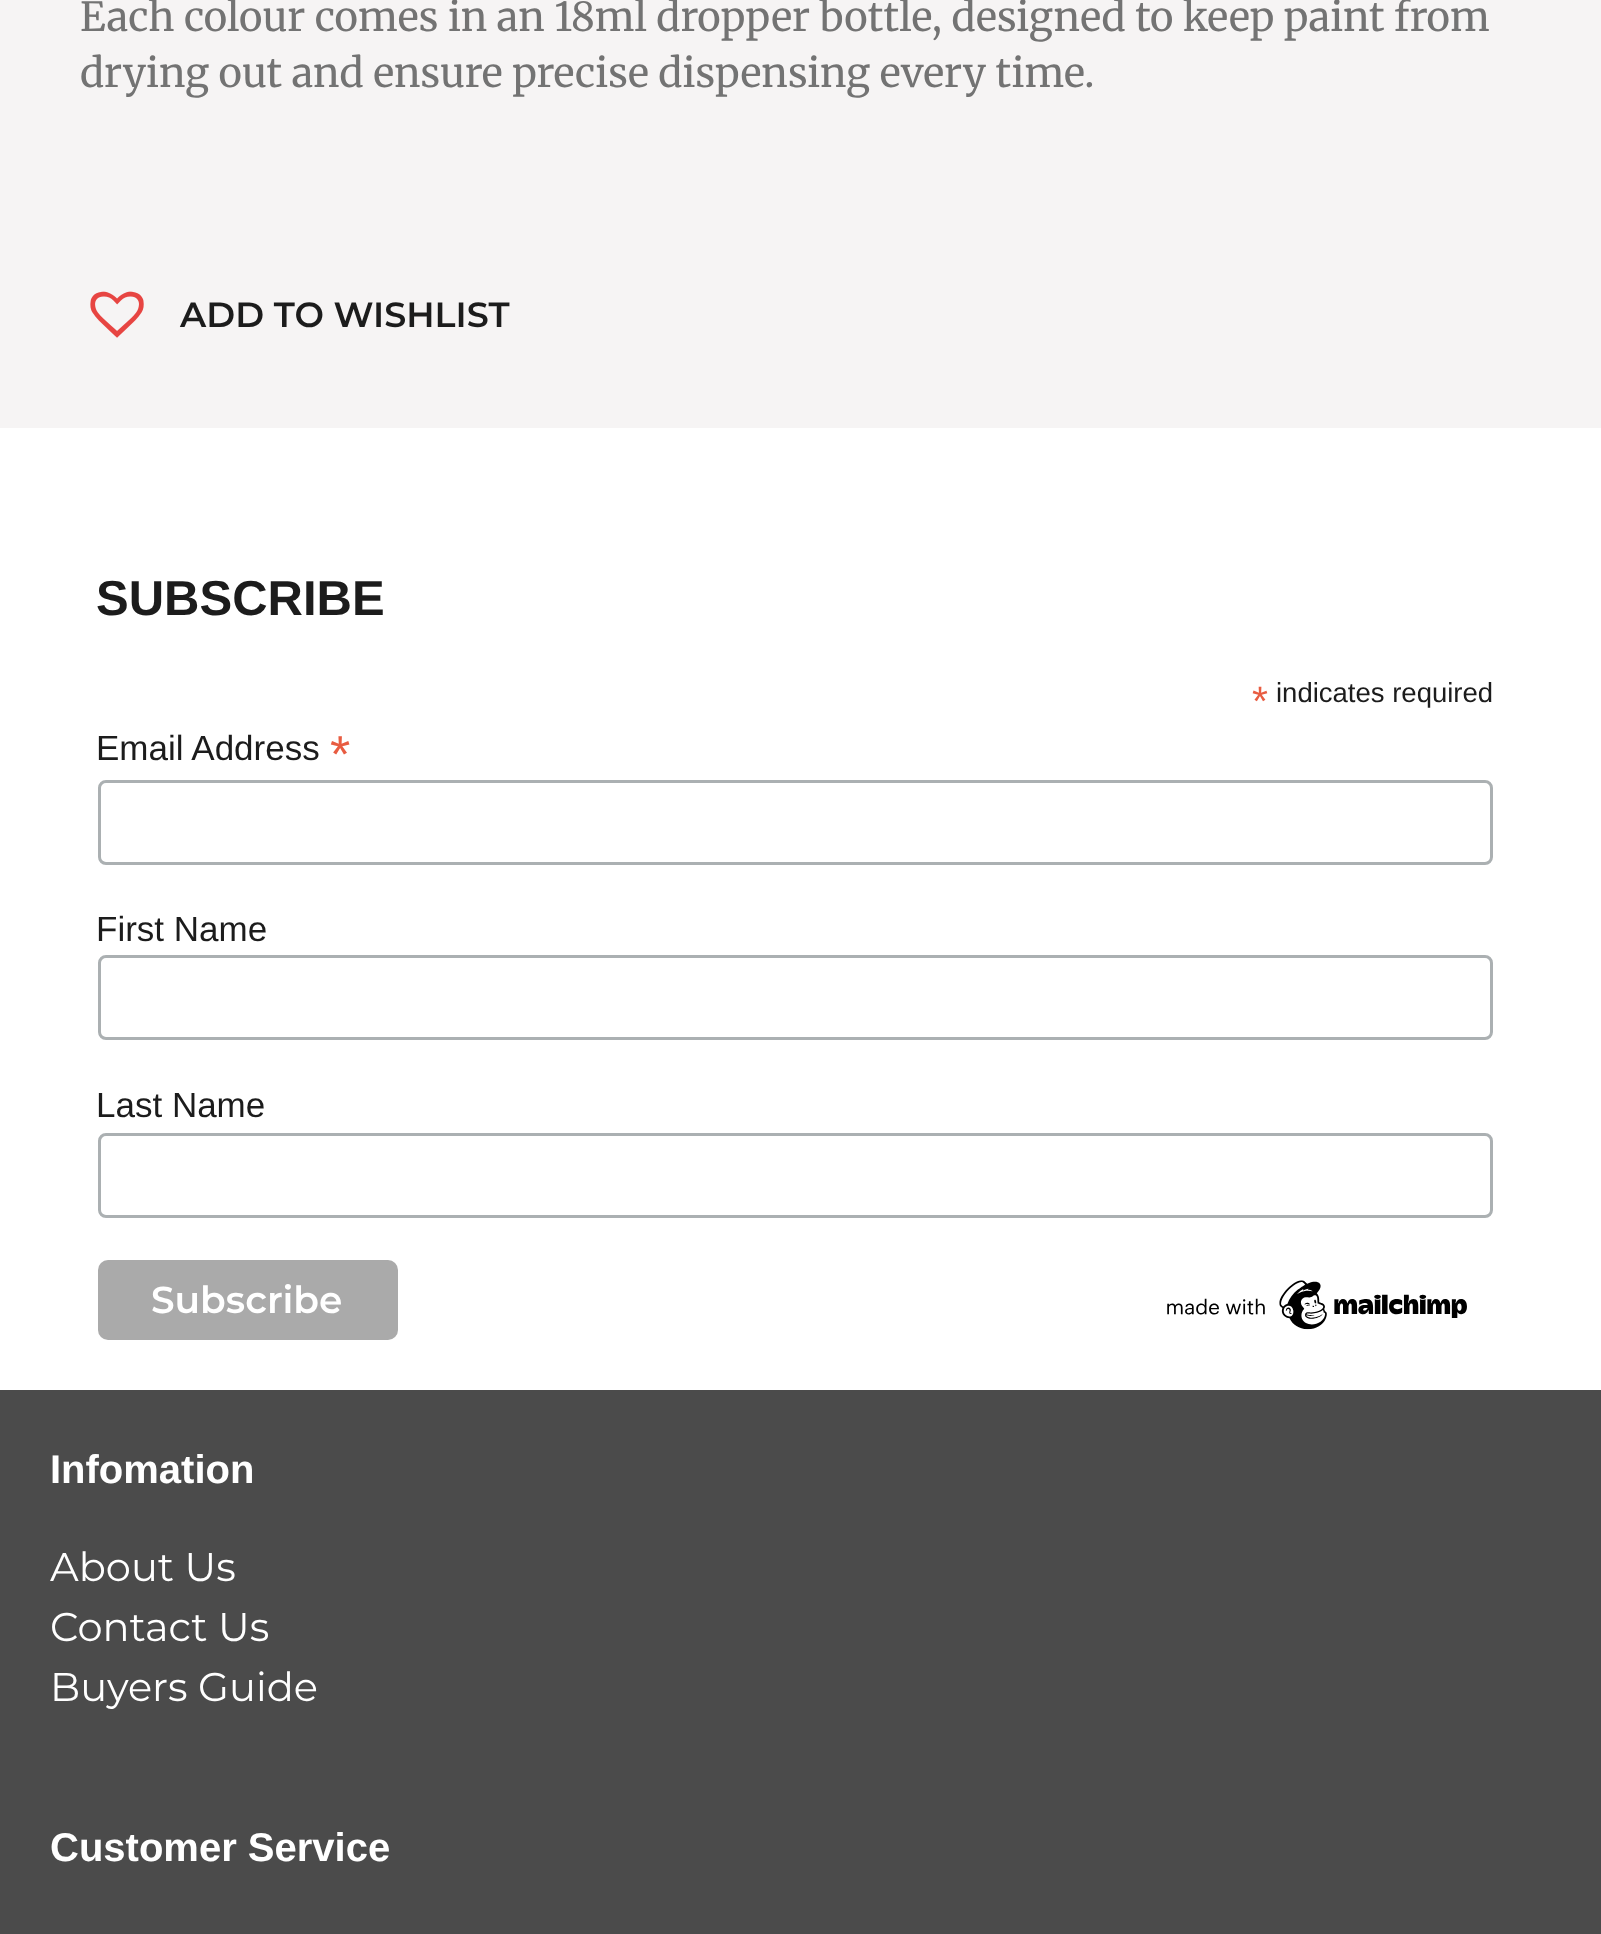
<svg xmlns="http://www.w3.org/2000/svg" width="1601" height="1934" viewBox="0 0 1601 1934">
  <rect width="100%" height="100%" fill="#fff"/>
  <path d="M0 0h1601v428H0z" fill="#f6f4f4"/>
  <image x="90" y="291" width="54" height="47" href="img/1.png"/>
  <rect x="99.5" y="781.5" width="1392" height="82" rx="6.5" fill="none" stroke="#abb0b2" stroke-width="3"/>
  <rect x="99.5" y="956.5" width="1392" height="82" rx="6.5" fill="none" stroke="#abb0b2" stroke-width="3"/>
  <rect x="99.5" y="1134.5" width="1392" height="82" rx="6.5" fill="none" stroke="#abb0b2" stroke-width="3"/>
  <rect x="98" y="1260" width="300" height="80" rx="10" fill="#aaa"/>
  <image x="1167" y="1280" width="300" height="50" href="img/2.png"/>
  <path d="M0 1390h1601v544H0z" fill="#4b4b4b"/>
  <g font-family="Merriweather" font-size="40" font-weight="300" fill="#737373">
    <text x="80" y="31">Each colour comes in an 18ml dropper bottle, designed to keep paint from</text>
    <text x="80" y="87">drying out and ensure precise dispensing every time.</text>
  </g>
  <text x="180" y="327" font-family="Montserrat" font-size="35" font-weight="600" fill="#1c1c1c">ADD TO WISHLIST</text>
  <text x="96" y="615" font-family="Liberation Sans" font-size="49" font-weight="bold" fill="#1c1c1c">SUBSCRIBE</text>
  <text x="1252" y="715" font-family="Liberation Sans" font-size="41" fill="#e85c41">*</text>
  <text x="1276" y="702" font-family="Liberation Sans" font-size="27.5" fill="#1c1c1c">indicates required</text>
  <text x="96" y="760" font-family="Liberation Sans" font-size="35" fill="#1c1c1c">Email Address</text>
  <text x="330" y="772" font-family="Liberation Sans" font-size="52" fill="#e85c41">*</text>
  <g font-family="Liberation Sans" font-size="35" fill="#1c1c1c">
    <text x="96" y="941">First Name</text>
    <text x="96" y="1117">Last Name</text>
  </g>
  <text x="151" y="1313" font-family="Montserrat" font-size="37.5" font-weight="600" fill="#fff">Subscribe</text>
  <text x="50" y="1483" font-family="Liberation Sans" font-size="40" font-weight="bold" fill="#fff">Infomation</text>
  <g font-family="Montserrat" font-size="40" fill="#fff">
    <text x="50" y="1581">About Us</text>
    <text x="50" y="1641">Contact Us</text>
    <text x="50" y="1701">Buyers Guide</text>
  </g>
  <text x="50" y="1861" font-family="Liberation Sans" font-size="40" font-weight="bold" fill="#fff">Customer Service</text>
</svg>
